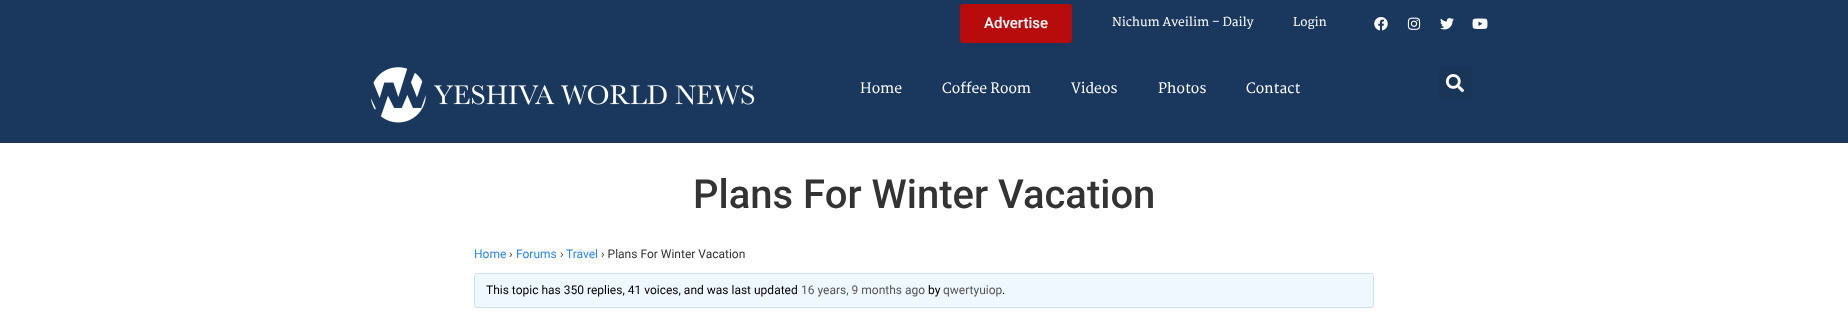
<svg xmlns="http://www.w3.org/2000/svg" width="1848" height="312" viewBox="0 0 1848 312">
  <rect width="100%" height="100%" fill="#fff"/>
  <path d="M0 0h1848v143H0z" fill="#1a385d"/>
  <rect x="960" y="4" width="112" height="39" rx="3" fill="#b80b0b"/>
  <image x="1374" y="17" width="14" height="14" href="img/1.png"/>
  <image x="1407" y="17" width="14" height="13" href="img/2.png"/>
  <image x="1440" y="18" width="14" height="12" href="img/3.png"/>
  <image x="1472" y="18" width="16" height="11" href="img/4.png"/>
  <image x="370" y="67" width="385" height="56" href="img/5.png"/>
  <rect x="1439" y="66" width="33" height="33" rx="3" fill="#193558"/>
  <image x="1445" y="74" width="19" height="19" href="img/6.png"/>
  <rect x="474.5" y="273.5" width="899" height="34" rx="2.5" fill="#f0f8ff" stroke="#cee1ef"/>
  <text x="984" y="28" font-family="Roboto" font-size="15" font-weight="500" fill="#fff">Advertise</text>
  <g font-family="Martel" font-size="12" font-weight="600" fill="#fff">
    <text x="1112" y="26">Nichum Aveilim – Daily</text>
    <text x="1293" y="26">Login</text>
  </g>
  <g font-family="Martel" font-size="14" font-weight="600" fill="#fff">
    <text x="860" y="93">Home</text>
    <text x="942" y="93">Coffee Room</text>
    <text x="1071" y="93">Videos</text>
    <text x="1158" y="93">Photos</text>
    <text x="1246" y="93">Contact</text>
  </g>
  <text x="693" y="208" font-family="Roboto" font-size="40" font-weight="500" fill="#333">Plans For Winter Vacation</text>
  <text x="474" y="258" font-family="Roboto" font-size="12" fill="#2b85f4">Home</text>
  <text x="509" y="258" font-family="Roboto" font-size="12" fill="#333">›</text>
  <text x="516" y="258" font-family="Roboto" font-size="12" fill="#2b85f4">Forums</text>
  <text x="560" y="258" font-family="Roboto" font-size="12" fill="#333">›</text>
  <text x="566" y="258" font-family="Roboto" font-size="12" fill="#2b85f4">Travel</text>
  <text x="601" y="258" font-family="Roboto" font-size="12" fill="#333">› Plans For Winter Vacation</text>
  <text x="486" y="294" font-family="Roboto" font-size="12" fill="#000">This topic has 350 replies, 41 voices, and was last updated</text>
  <text x="801" y="294" font-family="Roboto" font-size="12" fill="#555">16 years, 9 months ago</text>
  <text x="928" y="294" font-family="Roboto" font-size="12" fill="#000">by</text>
  <text x="943" y="294" font-family="Roboto" font-size="12" fill="#555">qwertyuiop</text>
  <text x="1002" y="294" font-family="Roboto" font-size="12" fill="#000">.</text>
</svg>
